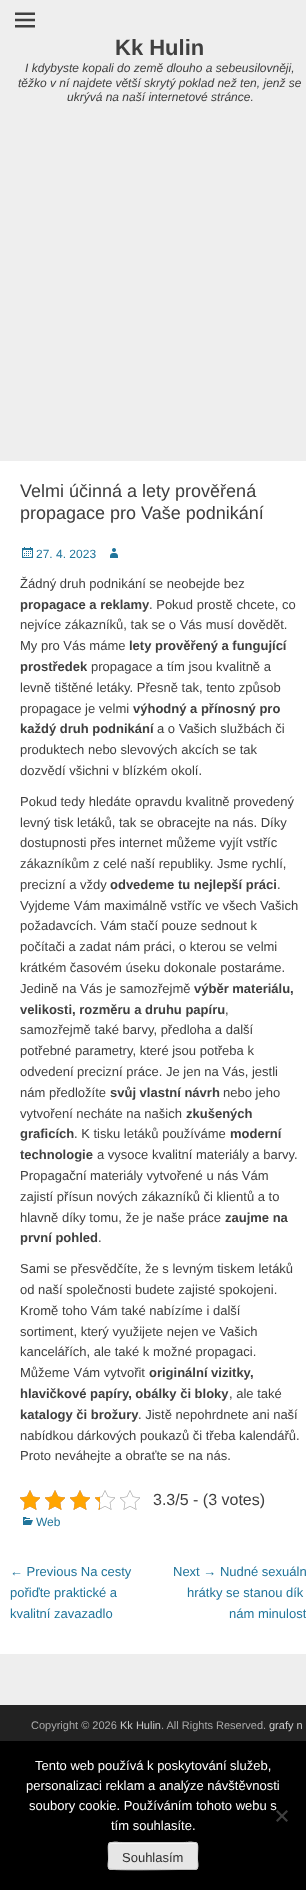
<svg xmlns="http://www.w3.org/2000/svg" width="306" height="1890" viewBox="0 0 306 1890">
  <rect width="100%" height="100%" fill="#eee"/>
  <image x="15" y="12" width="20" height="16" href="img/1.png"/>
  <path d="M0 461h306v1193H0z" fill="#fff"/>
  <image x="22" y="547" width="11" height="11" href="img/2.png"/>
  <image x="110" y="548" width="8" height="10" href="img/3.png"/>
  <image x="20" y="1490" width="20" height="20" href="img/4.png"/>
  <image x="45" y="1490" width="20" height="20" href="img/4.png"/>
  <image x="70" y="1490" width="20" height="20" href="img/4.png"/>
  <image x="95" y="1490" width="20" height="20" href="img/4.png"/>
  <image x="120" y="1490" width="20" height="20" href="img/4.png"/>
  <image x="20" y="1490" width="20" height="20" href="img/5.png"/>
  <image x="45" y="1490" width="20" height="20" href="img/5.png"/>
  <image x="70" y="1490" width="20" height="20" href="img/5.png"/>
  <image x="95" y="1496" width="5" height="14" href="img/6.png"/>
  <image x="23" y="1517" width="10" height="8" href="img/7.png"/>
  <path d="M0 1705h306v36H0z" fill="#222"/>
  <path d="M0 1741h306v149H0z" fill="#000"/>
  <rect x="108" y="1842" width="90" height="28" rx="3" fill="#e6e6e6"/>
  <path d="M111 1844H195C196 1844 197 1845 197 1846C197 1839 183 1843 181 1843H125C123 1843 109 1839 109 1846C109 1845 110 1844 111 1844Z" fill="#f3f3f3"/>
  <path d="M197 1869L195 1869.5H181C173.5 1869.5 111.5 1870.5 109.5 1869H109" fill="none" stroke="#bbb"/>
  <path d="M109 1869C107 1866.5 108.5 1862 108.5 1859.5C108.5 1839.5 104.5 1842.5 125 1842.5H181C201.5 1842.5 197.5 1839.5 197.5 1859.5C197.5 1862 199 1866.5 197 1869" fill="none" stroke="#ccc"/>
  <text x="115" y="55" font-family="Liberation Sans" font-size="22" font-weight="bold" fill="#404040">Kk Hulin</text>
  <g font-family="Liberation Sans" font-size="12" font-style="italic" fill="#404040">
    <text x="25" y="72">I kdybyste kopali do země dlouho a sebeusilovněji,</text>
    <text x="18" y="87">těžko v ní najdete větší skrytý poklad než ten, jenž se</text>
    <text x="67" y="101">ukrývá na naší internetové stránce.</text>
  </g>
  <g font-family="Liberation Sans" font-size="18" fill="#404040">
    <text x="20" y="497">Velmi účinná a lety prověřená</text>
    <text x="20" y="519">propagace pro Vaše podnikání</text>
  </g>
  <text x="36" y="558" font-family="Liberation Sans" font-size="12" fill="#21759b">27. 4. 2023</text>
  <text x="20" y="588" font-family="Liberation Sans" font-size="13" fill="#404040">Žádný druh podnikání se neobejde bez</text>
  <text x="20" y="609" font-family="Liberation Sans" font-size="13" font-weight="bold" fill="#404040">propagace a reklamy</text>
  <g font-family="Liberation Sans" font-size="13" fill="#404040">
    <text x="149" y="609">. Pokud prostě chcete, co</text>
    <text x="20" y="629">nejvíce zákazníků, tak se o Vás musí dovědět.</text>
    <text x="20" y="650">My pro Vás máme</text>
  </g>
  <g font-family="Liberation Sans" font-size="13" font-weight="bold" fill="#404040">
    <text x="129" y="650">lety prověřený a fungující</text>
    <text x="20" y="671">prostředek</text>
  </g>
  <g font-family="Liberation Sans" font-size="13" fill="#404040">
    <text x="91" y="671">propagace a tím jsou kvalitně a</text>
    <text x="20" y="692">levně tištěné letáky. Přesně tak, tento způsob</text>
    <text x="20" y="713">propagace je velmi</text>
  </g>
  <g font-family="Liberation Sans" font-size="13" font-weight="bold" fill="#404040">
    <text x="133" y="713">výhodný a přínosný pro</text>
    <text x="20" y="733">každý druh podnikání</text>
  </g>
  <g font-family="Liberation Sans" font-size="13" fill="#404040">
    <text x="157" y="733">a o Vašich službách či</text>
    <text x="20" y="754">produktech nebo slevových akcích se tak</text>
    <text x="20" y="775">dozvědí všichni v blízkém okolí.</text>
    <text x="20" y="806">Pokud tedy hledáte opravdu kvalitně provedený</text>
    <text x="20" y="827">levný tisk letáků, tak se obracejte na nás. Díky</text>
    <text x="20" y="847">dostupnosti přes internet můžeme vyjít vstříc</text>
    <text x="20" y="868">zákazníkům z celé naší republiky. Jsme rychlí,</text>
    <text x="20" y="889">precizní a vždy</text>
  </g>
  <text x="110" y="889" font-family="Liberation Sans" font-size="13" font-weight="bold" fill="#404040">odvedeme tu nejlepší práci</text>
  <g font-family="Liberation Sans" font-size="13" fill="#404040">
    <text x="277" y="889">.</text>
    <text x="20" y="910">Vyjdeme Vám maximálně vstříc ve všech Vašich</text>
    <text x="20" y="930">požadavcích. Vám stačí pouze sednout k</text>
    <text x="20" y="951">počítači a zadat nám práci, o kterou se velmi</text>
    <text x="20" y="972">krátkém časovém úseku dokonale postaráme.</text>
    <text x="20" y="993">Jedině na Vás je samozřejmě</text>
  </g>
  <g font-family="Liberation Sans" font-size="13" font-weight="bold" fill="#404040">
    <text x="194" y="993">výběr materiálu,</text>
    <text x="20" y="1014">velikosti, rozměru a druhu papíru</text>
  </g>
  <g font-family="Liberation Sans" font-size="13" fill="#404040">
    <text x="225" y="1014">,</text>
    <text x="20" y="1034">samozřejmě také barvy, předloha a další</text>
    <text x="20" y="1055">potřebné parametry, které jsou potřeba k</text>
    <text x="20" y="1076">odvedení precizní práce. Je jen na Vás, jestli</text>
    <text x="20" y="1097">nám předložíte</text>
  </g>
  <text x="110" y="1097" font-family="Liberation Sans" font-size="13" font-weight="bold" fill="#404040">svůj vlastní návrh</text>
  <g font-family="Liberation Sans" font-size="13" fill="#404040">
    <text x="223" y="1097">nebo jeho</text>
    <text x="20" y="1118">vytvoření necháte na našich</text>
  </g>
  <g font-family="Liberation Sans" font-size="13" font-weight="bold" fill="#404040">
    <text x="186" y="1118">zkušených</text>
    <text x="20" y="1138">graficích</text>
  </g>
  <text x="74" y="1138" font-family="Liberation Sans" font-size="13" fill="#404040">. K tisku letáků používáme</text>
  <g font-family="Liberation Sans" font-size="13" font-weight="bold" fill="#404040">
    <text x="230" y="1138">moderní</text>
    <text x="20" y="1159">technologie</text>
  </g>
  <g font-family="Liberation Sans" font-size="13" fill="#404040">
    <text x="97" y="1159">a vysoce kvalitní materiály a barvy.</text>
    <text x="20" y="1180">Propagační materiály vytvořené u nás Vám</text>
    <text x="20" y="1201">zajistí přísun nových zákazníků či klientů a to</text>
    <text x="20" y="1222">hlavně díky tomu, že je naše práce</text>
  </g>
  <g font-family="Liberation Sans" font-size="13" font-weight="bold" fill="#404040">
    <text x="225" y="1222">zaujme na</text>
    <text x="20" y="1242">první pohled</text>
  </g>
  <g font-family="Liberation Sans" font-size="13" fill="#404040">
    <text x="98" y="1242">.</text>
    <text x="20" y="1273">Sami se přesvědčíte, že s levným tiskem letáků</text>
    <text x="20" y="1294">od naší společnosti budete zajisté spokojeni.</text>
    <text x="20" y="1315">Kromě toho Vám také nabízíme i další</text>
    <text x="20" y="1336">sortiment, který využijete nejen ve Vašich</text>
    <text x="20" y="1356">kancelářích, ale také k možné propagaci.</text>
    <text x="20" y="1377">Můžeme Vám vytvořit</text>
  </g>
  <g font-family="Liberation Sans" font-size="13" font-weight="bold" fill="#404040">
    <text x="149" y="1377">originální vizitky,</text>
    <text x="20" y="1398">hlavičkové papíry, obálky či bloky</text>
  </g>
  <text x="229" y="1398" font-family="Liberation Sans" font-size="13" fill="#404040">, ale také</text>
  <text x="20" y="1419" font-family="Liberation Sans" font-size="13" font-weight="bold" fill="#404040">katalogy či brožury</text>
  <g font-family="Liberation Sans" font-size="13" fill="#404040">
    <text x="138" y="1419">. Jistě nepohrdnete ani naší</text>
    <text x="20" y="1440">nabídkou dárkových poukazů či třeba kalendářů.</text>
    <text x="20" y="1460">Proto neváhejte a obraťte se na nás.</text>
  </g>
  <text x="153" y="1505" font-family="Liberation Sans" font-size="16" fill="#404040">3.3/5 - (3 votes)</text>
  <text x="36" y="1526" font-family="Liberation Sans" font-size="12" fill="#21759b">Web</text>
  <g font-family="Liberation Sans" font-size="13" fill="#21759b">
    <text x="10" y="1576">← Previous Na cesty</text>
    <text x="10" y="1597">pořiďte praktické a</text>
    <text x="10" y="1618">kvalitní zavazadlo</text>
    <text x="173" y="1576">Next → Nudné sexuáln</text>
    <text x="187" y="1597">hrátky se stanou dík</text>
    <text x="229" y="1618">nám minulost</text>
  </g>
  <text x="31" y="1729" font-family="Liberation Sans" font-size="11" fill="#aaa">Copyright © 2026</text>
  <text x="120" y="1729" font-family="Liberation Sans" font-size="11" fill="#ccc">Kk Hulin</text>
  <text x="161" y="1729" font-family="Liberation Sans" font-size="11" fill="#aaa">. All Rights Reserved.</text>
  <text x="269" y="1729" font-family="Liberation Sans" font-size="11" fill="#ccc">grafy n</text>
  <g font-family="Liberation Sans" font-size="13" fill="#fff">
    <text x="35" y="1770">Tento web používá k poskytování služeb,</text>
    <text x="26" y="1790">personalizaci reklam a analýze návštěvnosti</text>
    <text x="29" y="1810">soubory cookie. Používáním tohoto webu s</text>
    <text x="111" y="1830">tím souhlasíte.</text>
  </g>
  <path d="M286.5 1810L288 1811.5L277.5 1822L276 1820.5Z" fill="#404040"/>
  <path d="M276 1811.5L277.5 1810L288 1820.5L286.5 1822Z" fill="#404040"/>
  <text x="122" y="1862" font-family="Liberation Sans" font-size="13" fill="#2e2e2e">Souhlasím</text>
</svg>
